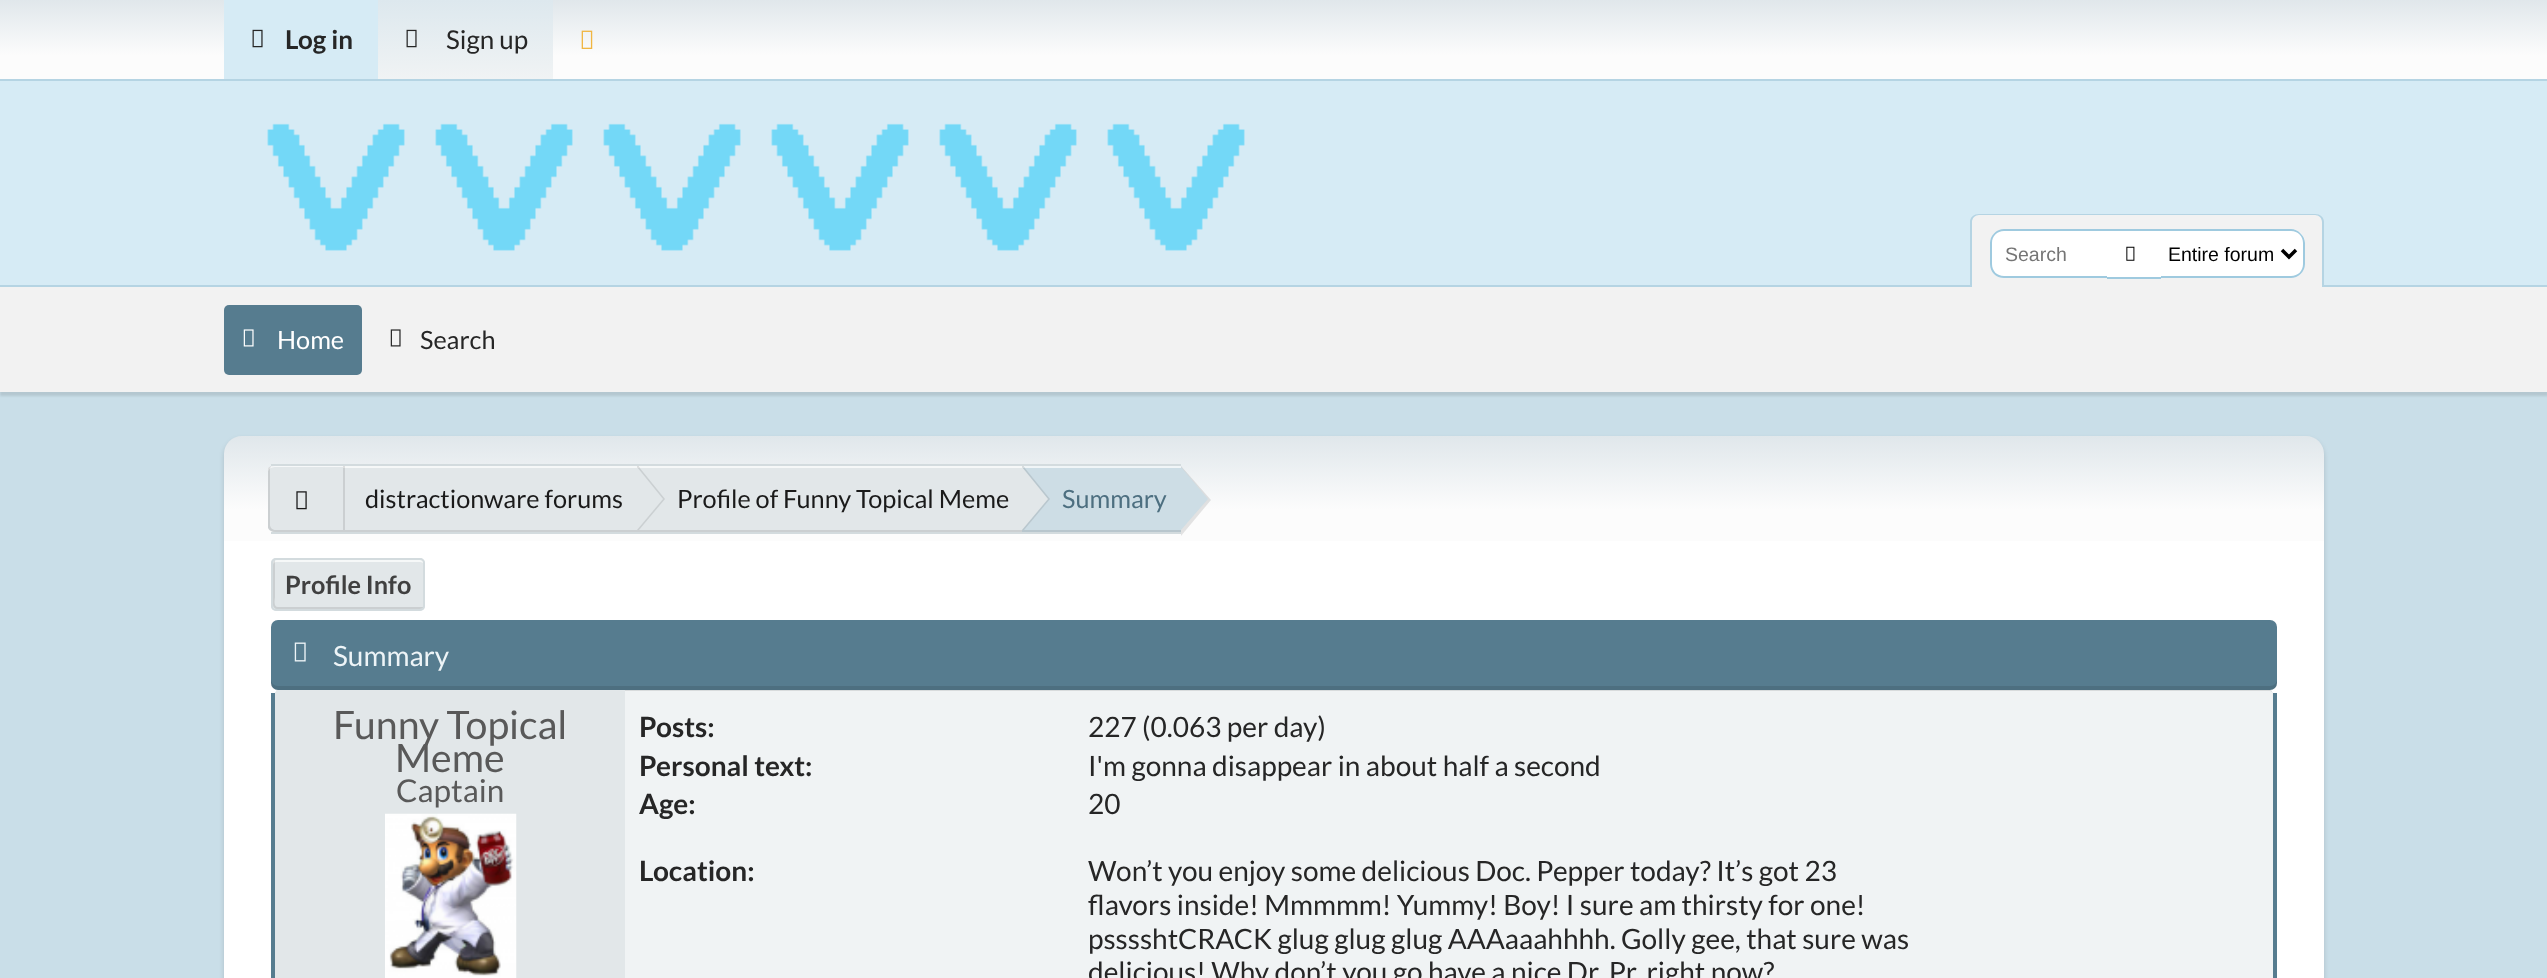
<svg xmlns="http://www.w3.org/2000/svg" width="2547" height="978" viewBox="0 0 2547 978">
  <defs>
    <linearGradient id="g1" gradientUnits="userSpaceOnUse" x1="1274" y1="0" x2="1274" y2="79"><stop offset="0" stop-color="#e0e7eb"/><stop offset="0.7" stop-color="#fcfcfc"/></linearGradient>
    <linearGradient id="g2" gradientUnits="userSpaceOnUse" x1="466" y1="0" x2="466" y2="79"><stop offset="0" stop-color="#dde8ee"/><stop offset="1" stop-color="#f0f3f4"/></linearGradient>
    <linearGradient id="g3" gradientUnits="userSpaceOnUse" x1="1274" y1="436" x2="1274" y2="541"><stop offset="0" stop-color="#e0e7eb"/><stop offset="0.7" stop-color="#fcfcfc"/></linearGradient>
    <clipPath id="clip1"><path d="M343 466h294v66H343z"/></clipPath>
    <clipPath id="clip2"><path d="M637 466h385v66H637z"/></clipPath>
    <clipPath id="clip3"><path d="M1022 466h159v66H1022z"/></clipPath>
  </defs>
  <rect width="100%" height="100%" fill="#c9dee8"/>
  <path d="M0 0h2547v79H0z" fill="url(#g1)"/>
  <path d="M0 79h2547v2H0z" fill="#b5d4e3"/>
  <path d="M224 0h154v79H224z" fill="#d6ebf5"/>
  <image x="252" y="29" width="11" height="19" href="img/1.png"/>
  <path d="M378 0h175v79H378z" fill="url(#g2)"/>
  <image x="406" y="29" width="11" height="19" href="img/2.png"/>
  <image x="581" y="30" width="12" height="19" href="img/3.png"/>
  <path d="M0 81h2547v204H0z" fill="#d6ebf5"/>
  <path d="M0 285h2547v2H0z" fill="#b5d4e3"/>
  <image x="267" y="123" width="978" height="128" href="img/4.png"/>
  <path d="M1979 215H2315C2319 215 2322 218 2322 222V287H1972V222C1972 218 1975 215 1979 215Z" fill="#f2f2f2"/>
  <path d="M1979 214H2315C2320 214 2324 217 2324 222V287H1970V222C1970 217 1974 214 1979 214ZM1979 215H2315C2319 215 2322 218 2322 222V287H1972V222C1972 218 1975 215 1979 215Z" fill="#b5d4e3" fill-rule="evenodd"/>
  <path d="M2004 229H2107V278H2004C1996.5 278 1990 271.5 1990 264V243C1990 235.5 1996.5 229 2004 229Z" fill="#fff"/>
  <path d="M2004 229H2107V278H2004C1996 278 1990 272 1990 264V243C1990 236 1996 229 2004 229ZM2004 231H2107V276H2004C1997 276 1992 271 1992 264V243C1992 236 1997 231 2004 231Z" fill="#9fcadf" fill-rule="evenodd"/>
  <path d="M2107 231h54v46H2107z" fill="#fff"/>
  <path d="M2107 229h54v2H2107z" fill="#9fcadf"/>
  <path d="M2107 277h54v2H2107z" fill="#9fcadf"/>
  <image x="2126" y="246" width="9" height="15" href="img/5.png"/>
  <path d="M2161 229H2291C2298.5 229 2305 235.5 2305 243V264C2305 271.5 2298.5 278 2291 278H2161Z" fill="#fff"/>
  <path d="M2161 229H2291C2298 229 2305 236 2305 243V264C2305 272 2298 278 2291 278H2161ZM2161 231H2291C2298 231 2303 236 2303 243V264C2303 271 2298 276 2291 276H2161Z" fill="#9fcadf" fill-rule="evenodd"/>
  <path d="M2282 250L2289 257L2296 250" fill="none" stroke="#000" stroke-width="3.5"/>
  <path d="M0 291h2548v105H0z" fill="#0000001a" filter="blur(1px)"/>
  <path d="M0 287h2547v105H0z" fill="#f2f2f2"/>
  <rect x="224" y="305" width="138" height="70" rx="5" fill="#567c8f"/>
  <image x="243" y="329" width="11" height="18" href="img/6.png"/>
  <image x="390" y="329" width="11" height="18" href="img/7.png"/>
  <rect x="224" y="439" width="2100" height="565" rx="18" fill="#00000024" filter="blur(2.5px)"/>
  <path d="M242 436H2306C2316 436 2324 444 2324 454V541H224V454C224 444 232 436 242 436Z" fill="url(#g3)"/>
  <path d="M275 466H343V532H275C271 532 268 530 268 527V471C268 468 271 466 275 466Z" fill="#e2e7e9"/>
  <path d="M275 467H343V466H275C272 466 269 467 268 469V472C268 470 271 467 275 467ZM268 528H268Z" fill="#ffffffb3" fill-rule="evenodd"/>
  <path d="M268 528V469C268 468 269 467 271 466L270 469V525C270 528 273 530 276 530H343V532H275C272 532 269 530 268 528Z" fill="#0000001a"/>
  <path d="M271 464h910v2H271z" fill="#d3dbde"/>
  <path d="M271 532h910v2H271z" fill="#d3dbde"/>
  <image x="296" y="491" width="11" height="19" href="img/8.png"/>
  <path d="M343 468h679v64H343z" fill="#e2e7e9"/>
  <path d="M343 466h679v2H343z" fill="#f6f8f8"/>
  <g clip-path="url(#clip1)">
    <path d="M272 462H810V536H272C270 536 268 534 268 532V466C268 464 270 462 272 462ZM345 464V530H639V464Z" fill="#0000001a" fill-rule="evenodd"/>
  </g>
  <g clip-path="url(#clip2)">
    <path d="M464 536V462H1195V536ZM639 464V530H1024V464Z" fill="#0000001a" fill-rule="evenodd"/>
  </g>
  <path d="M639 530V467L665 499Z" fill="#cbd0d2"/>
  <path d="M637 530V467L663 499Z" fill="#e2e7e9"/>
  <path d="M1022 468h159v64H1022z" fill="#cddde5"/>
  <path d="M1022 466h159v2H1022z" fill="#f0f5f7"/>
  <g clip-path="url(#clip3)">
    <path d="M849 536V462H1354V536ZM1024 464V530H1183V464Z" fill="#0000001a" fill-rule="evenodd"/>
  </g>
  <path d="M1024 530V467L1050 499Z" fill="#b9c7ce"/>
  <path d="M1022 530V467L1048 499Z" fill="#e2e7e9"/>
  <path d="M1181 536V466L1211 500Z" fill="#0000001a"/>
  <path d="M1181 530V467L1208 499Z" fill="#cddde5"/>
  <path d="M224 541h2100v437H224z" fill="#fff"/>
  <rect x="271" y="558" width="154" height="53" rx="5" fill="#e2e7e9"/>
  <path d="M276 562H420C422 562 424 563 424 565V564C424 562 422 560 420 560H277C275 560 273 562 273 564V565C273 563 275 562 276 562Z" fill="#f6f8f8"/>
  <path d="M275 560C274 561 273 562 273 564V605C273 607 275 609 277 609H420C422 609 423 608 424 607H278C273 607 275 599 275 597Z" fill="#0000001a"/>
  <rect x="272" y="559" width="152" height="51" rx="4" fill="none" stroke="#d3dbde" stroke-width="2"/>
  <rect x="271" y="620" width="2006" height="70" rx="7" fill="#567c8f"/>
  <path d="M271 679V683C271 687 274 690 278 690H2270C2274 690 2277 687 2277 683V679C2277 683 2274 686 2270 686H278C274 686 271 683 271 679Z" fill="#0000001a"/>
  <image x="294" y="642" width="12" height="20" href="img/9.png"/>
  <path d="M278 690H2270C2272 690 2273 693 2273 696V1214C2273 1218 2272 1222 2270 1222H278C276 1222 275 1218 275 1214V696C275 693 276 690 278 690Z" fill="#f0f3f4"/>
  <path d="M278 691H2270C2273 691 2273 696 2273 698V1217V696C2273 693 2272 690 2270 690H278C276 690 275 693 275 696V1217V698C275 696 275 691 278 691Z" fill="#d8dbdc"/>
  <path d="M2273 693h4v285H2273z" fill="#567c8f"/>
  <path d="M271 693h4v285H271z" fill="#567c8f"/>
  <path d="M275 694C275 692 276 691 277 690H625V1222H278C277 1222 276 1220 275 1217Z" fill="#e2e7e9"/>
  <image x="385" y="813" width="132" height="165" href="img/10.png"/>
  <text x="285" y="49" font-family="Lato" font-size="26" font-weight="bold" fill="#262626">Log in</text>
  <text x="446" y="49" font-family="Lato" font-size="26" fill="#262626">Sign up</text>
  <text x="2005" y="261" font-family="Liberation Sans" font-size="19.5" fill="#757575">Search</text>
  <text x="2168" y="261" font-family="Liberation Sans" font-size="19.5" fill="#000">Entire forum</text>
  <text x="277" y="349" font-family="Lato" font-size="25.25" fill="#fff">Home</text>
  <text x="420" y="349" font-family="Lato" font-size="25.25" fill="#262626">Search</text>
  <g font-family="Lato" font-size="25.25" fill="#1a1a1a">
    <text x="365" y="508">distractionware forums</text>
    <text x="677" y="508">Profile of Funny Topical Meme</text>
  </g>
  <text x="1062" y="508" font-family="Lato" font-size="25.25" fill="#4d6f80">Summary</text>
  <text x="285" y="594" font-family="Lato" font-size="25.25" font-weight="bold" fill="#404040">Profile Info</text>
  <text x="333" y="666" font-family="Lato" font-size="28" fill="#edf4f7">Summary</text>
  <g font-family="Lato" font-size="39.25" fill="#595959">
    <text x="333" y="739">Funny Topical</text>
    <text x="395" y="772">Meme</text>
  </g>
  <text x="396" y="802" font-family="Lato" font-size="31.5" fill="#595959">Captain</text>
  <text x="639" y="737" font-family="Lato" font-size="28" font-weight="bold" fill="#262626">Posts:</text>
  <text x="1088" y="737" font-family="Lato" font-size="28" fill="#262626">227 (0.063 per day)</text>
  <text x="639" y="776" font-family="Lato" font-size="28" font-weight="bold" fill="#262626">Personal text:</text>
  <text x="1088" y="776" font-family="Lato" font-size="28" fill="#262626">I'm gonna disappear in about half a second</text>
  <text x="639" y="814" font-family="Lato" font-size="28" font-weight="bold" fill="#262626">Age:</text>
  <text x="1088" y="814" font-family="Lato" font-size="28" fill="#262626">20</text>
  <text x="639" y="881" font-family="Lato" font-size="28" font-weight="bold" fill="#262626">Location:</text>
  <g font-family="Lato" font-size="28" fill="#262626">
    <text x="1088" y="881">Won’t you enjoy some delicious Doc. Pepper today? It’s got 23</text>
    <text x="1088" y="915">flavors inside! Mmmmm! Yummy! Boy! I sure am thirsty for one!</text>
    <text x="1088" y="949">psssshtCRACK glug glug glug AAAaaahhhh. Golly gee, that sure was</text>
    <text x="1088" y="982">delicious! Why don’t you go have a nice Dr. Pr. right now?</text>
  </g>
</svg>
